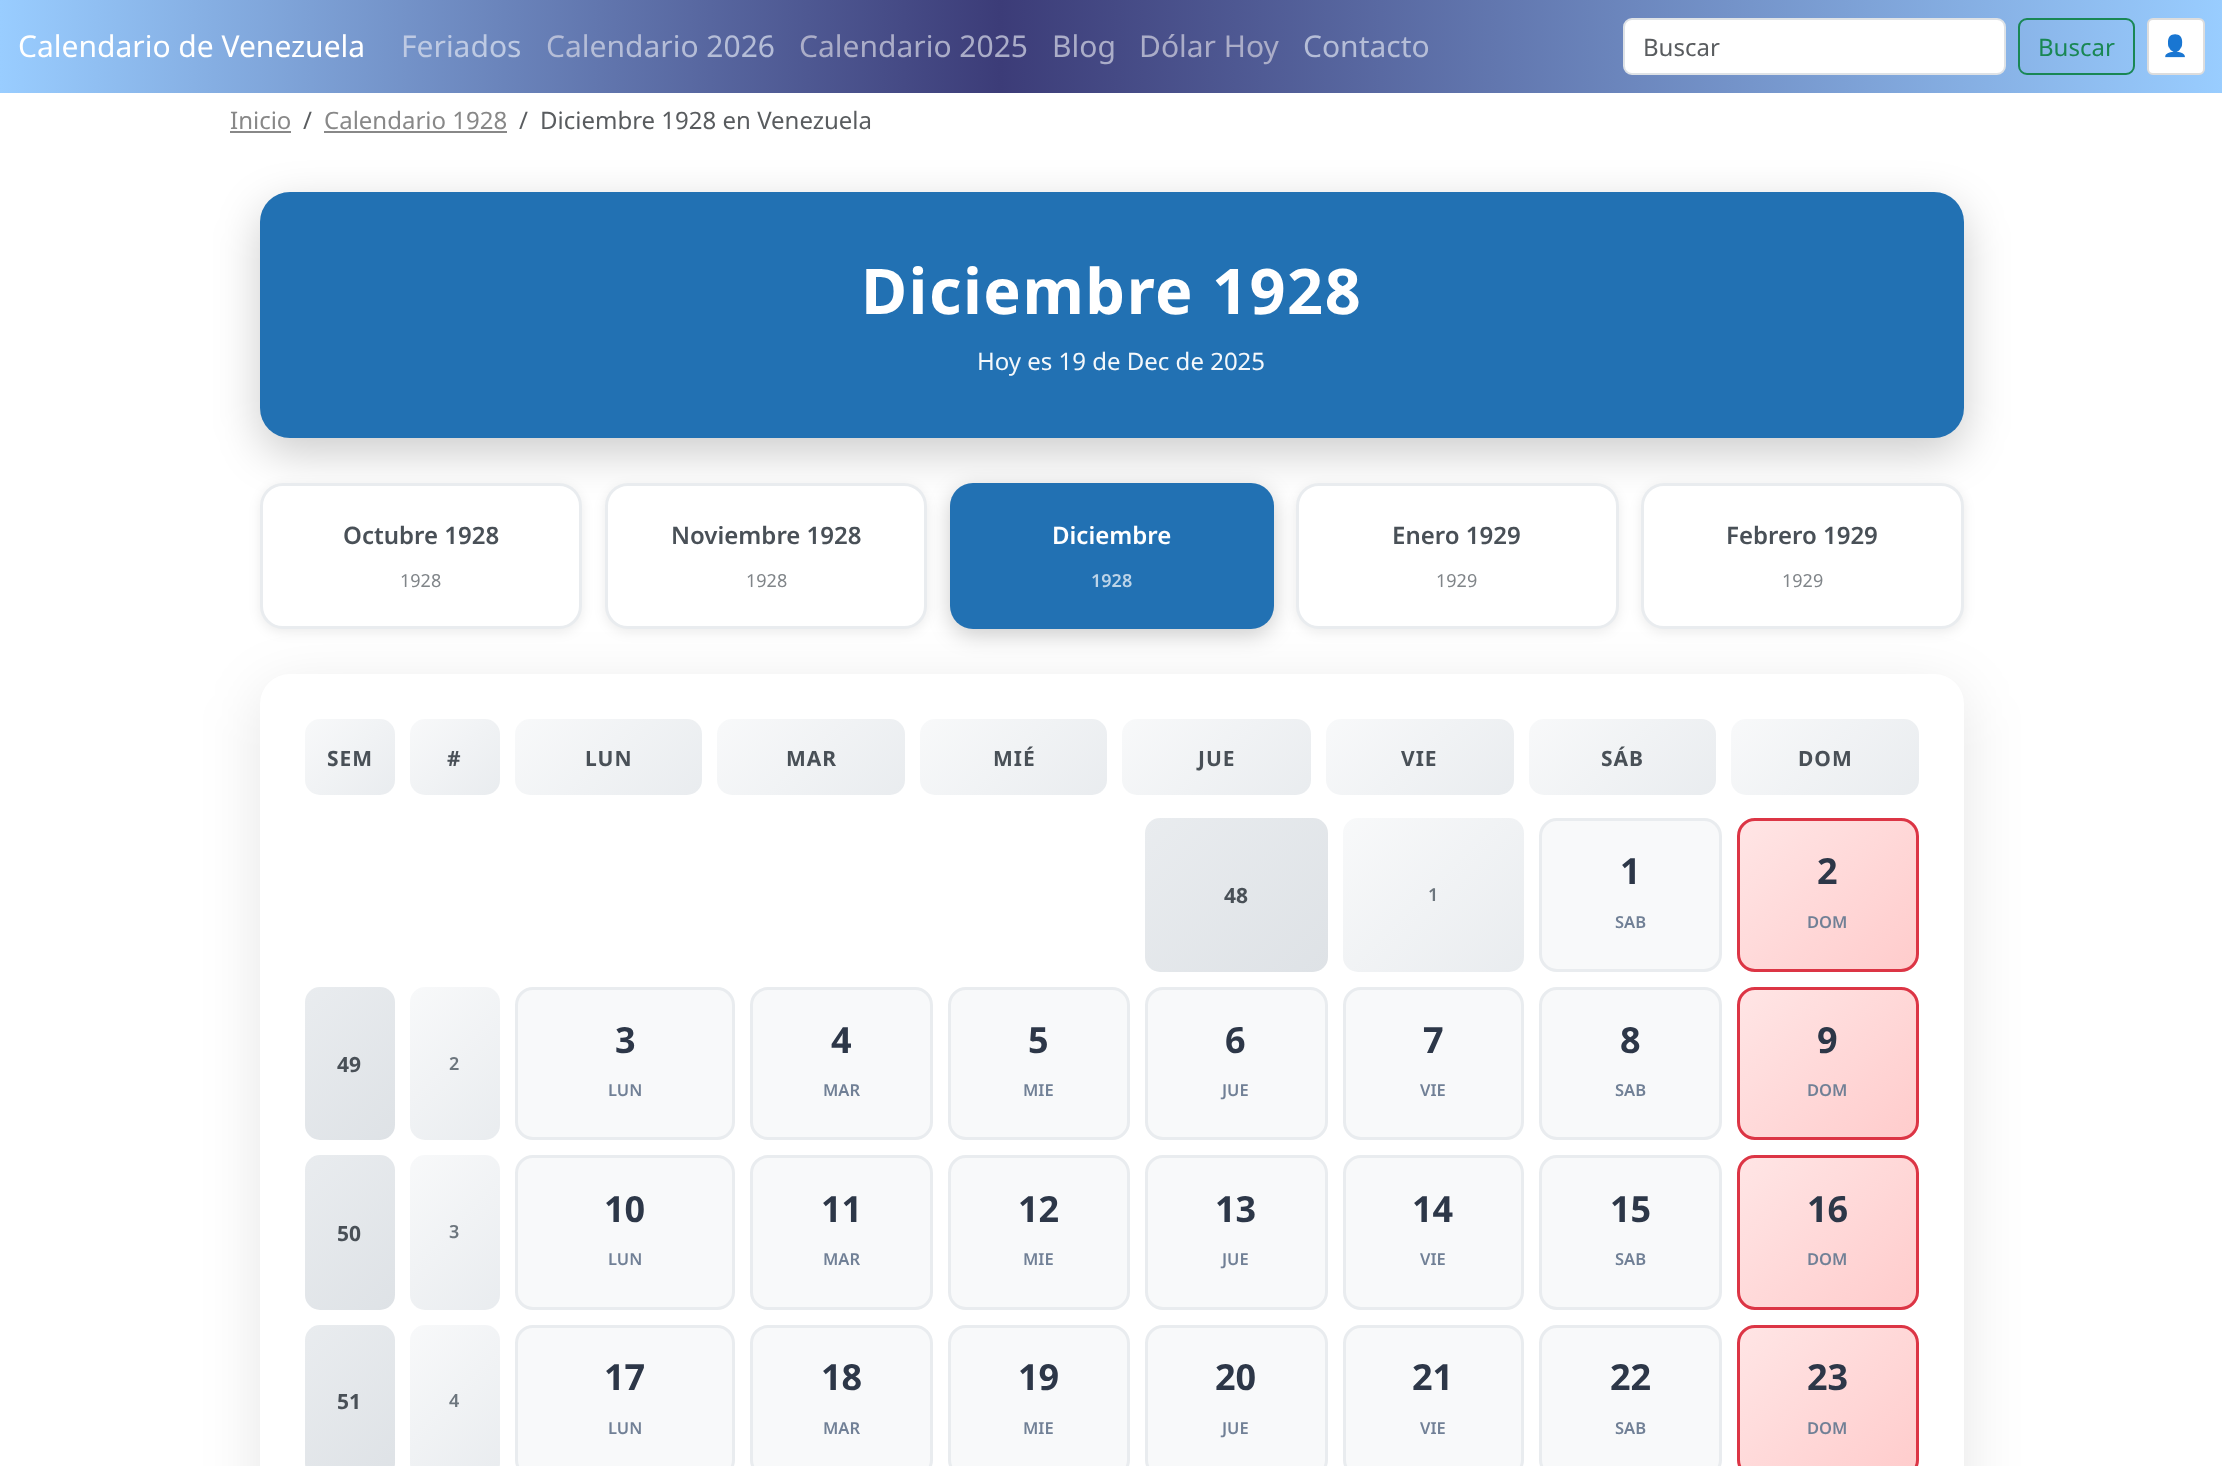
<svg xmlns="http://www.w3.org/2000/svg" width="2222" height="1466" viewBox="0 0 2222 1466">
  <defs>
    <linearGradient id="g1" gradientUnits="userSpaceOnUse" x1="0" y1="47" x2="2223" y2="46"><stop offset="0" stop-color="#99cdff"/><stop offset="0.45" stop-color="#3c3c78"/><stop offset="1" stop-color="#99cdff"/></linearGradient>
    <linearGradient id="g2" gradientUnits="userSpaceOnUse" x1="308" y1="715" x2="391" y2="798"><stop offset="0" stop-color="#f8f9fa"/><stop offset="1" stop-color="#e9ecef"/></linearGradient>
    <linearGradient id="g3" gradientUnits="userSpaceOnUse" x1="413" y1="715" x2="496" y2="798"><stop offset="0" stop-color="#f8f9fa"/><stop offset="1" stop-color="#e9ecef"/></linearGradient>
    <linearGradient id="g4" gradientUnits="userSpaceOnUse" x1="542" y1="691" x2="674" y2="823"><stop offset="0" stop-color="#f8f9fa"/><stop offset="1" stop-color="#e9ecef"/></linearGradient>
    <linearGradient id="g5" gradientUnits="userSpaceOnUse" x1="745" y1="691" x2="877" y2="823"><stop offset="0" stop-color="#f8f9fa"/><stop offset="1" stop-color="#e9ecef"/></linearGradient>
    <linearGradient id="g6" gradientUnits="userSpaceOnUse" x1="947" y1="691" x2="1079" y2="823"><stop offset="0" stop-color="#f8f9fa"/><stop offset="1" stop-color="#e9ecef"/></linearGradient>
    <linearGradient id="g7" gradientUnits="userSpaceOnUse" x1="1150" y1="690" x2="1283" y2="823"><stop offset="0" stop-color="#f8f9fa"/><stop offset="1" stop-color="#e9ecef"/></linearGradient>
    <linearGradient id="g8" gradientUnits="userSpaceOnUse" x1="1354" y1="691" x2="1486" y2="823"><stop offset="0" stop-color="#f8f9fa"/><stop offset="1" stop-color="#e9ecef"/></linearGradient>
    <linearGradient id="g9" gradientUnits="userSpaceOnUse" x1="1556" y1="691" x2="1688" y2="823"><stop offset="0" stop-color="#f8f9fa"/><stop offset="1" stop-color="#e9ecef"/></linearGradient>
    <linearGradient id="g10" gradientUnits="userSpaceOnUse" x1="1759" y1="691" x2="1891" y2="823"><stop offset="0" stop-color="#f8f9fa"/><stop offset="1" stop-color="#e9ecef"/></linearGradient>
    <linearGradient id="g11" gradientUnits="userSpaceOnUse" x1="1152" y1="810" x2="1320" y2="979"><stop offset="0" stop-color="#e9ecef"/><stop offset="1" stop-color="#dee2e6"/></linearGradient>
    <linearGradient id="g12" gradientUnits="userSpaceOnUse" x1="1349" y1="811" x2="1517" y2="979"><stop offset="0" stop-color="#f8f9fa"/><stop offset="1" stop-color="#e9ecef"/></linearGradient>
    <clipPath id="clip1"><rect x="1737" y="818" width="182" height="154" rx="18"/></clipPath>
    <linearGradient id="g13" gradientUnits="userSpaceOnUse" x1="1747" y1="814" x2="1909" y2="976"><stop offset="0" stop-color="#ffe5e5"/><stop offset="1" stop-color="#fcc"/></linearGradient>
    <linearGradient id="g14" gradientUnits="userSpaceOnUse" x1="289" y1="1003" x2="410" y2="1124"><stop offset="0" stop-color="#e9ecef"/><stop offset="1" stop-color="#dee2e6"/></linearGradient>
    <linearGradient id="g15" gradientUnits="userSpaceOnUse" x1="394" y1="1003" x2="515" y2="1124"><stop offset="0" stop-color="#f8f9fa"/><stop offset="1" stop-color="#e9ecef"/></linearGradient>
    <clipPath id="clip2"><rect x="1737" y="987" width="182" height="153" rx="18"/></clipPath>
    <linearGradient id="g16" gradientUnits="userSpaceOnUse" x1="1747" y1="983" x2="1908" y2="1144"><stop offset="0" stop-color="#ffe5e5"/><stop offset="1" stop-color="#fcc"/></linearGradient>
    <linearGradient id="g17" gradientUnits="userSpaceOnUse" x1="288" y1="1171" x2="411" y2="1293"><stop offset="0" stop-color="#e9ecef"/><stop offset="1" stop-color="#dee2e6"/></linearGradient>
    <linearGradient id="g18" gradientUnits="userSpaceOnUse" x1="393" y1="1171" x2="516" y2="1293"><stop offset="0" stop-color="#f8f9fa"/><stop offset="1" stop-color="#e9ecef"/></linearGradient>
    <clipPath id="clip3"><rect x="1737" y="1155" width="182" height="155" rx="18"/></clipPath>
    <linearGradient id="g19" gradientUnits="userSpaceOnUse" x1="1747" y1="1151" x2="1909" y2="1313"><stop offset="0" stop-color="#ffe5e5"/><stop offset="1" stop-color="#fcc"/></linearGradient>
    <linearGradient id="g20" gradientUnits="userSpaceOnUse" x1="289" y1="1340" x2="410" y2="1462"><stop offset="0" stop-color="#e9ecef"/><stop offset="1" stop-color="#dee2e6"/></linearGradient>
    <linearGradient id="g21" gradientUnits="userSpaceOnUse" x1="394" y1="1340" x2="515" y2="1462"><stop offset="0" stop-color="#f8f9fa"/><stop offset="1" stop-color="#e9ecef"/></linearGradient>
    <clipPath id="clip4"><rect x="1737" y="1325" width="182" height="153" rx="18"/></clipPath>
    <linearGradient id="g22" gradientUnits="userSpaceOnUse" x1="1747" y1="1320" x2="1908" y2="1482"><stop offset="0" stop-color="#ffe5e5"/><stop offset="1" stop-color="#fcc"/></linearGradient>
  </defs>
  <rect width="100%" height="100%" fill="#fff"/>
  <path d="M0 0h2222v93H0z" fill="url(#g1)"/>
  <rect x="1624" y="19" width="381" height="55" rx="8" fill="#fff" stroke="#dee2e6" stroke-width="2"/>
  <rect x="2019" y="19" width="115" height="55" rx="8" fill="none" stroke="#198754" stroke-width="2"/>
  <rect x="2148" y="19" width="56" height="55" rx="5" fill="#fff" stroke="#ddd" stroke-width="2"/>
  <path d="M230 131h61v2H230z" fill="#888"/>
  <path d="M324 131h183v2H324z" fill="#888"/>
  <rect x="260" y="207" width="1704" height="246" rx="30" fill="#00000033" filter="blur(22.5px)"/>
  <rect x="260" y="192" width="1704" height="246" rx="30" fill="#2271b3"/>
  <rect x="260" y="486" width="322" height="146" rx="23" fill="#00000014" filter="blur(6px)"/>
  <rect x="260" y="689" width="1704" height="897" rx="30" fill="#0000001a" filter="blur(30px)"/>
  <rect x="261.5" y="484.5" width="319" height="143" rx="21.5" fill="#fff" stroke="#e9ecef" stroke-width="3"/>
  <rect x="605" y="486" width="322" height="146" rx="23" fill="#00000014" filter="blur(6px)"/>
  <rect x="606.5" y="484.5" width="319" height="143" rx="21.5" fill="#fff" stroke="#e9ecef" stroke-width="3"/>
  <rect x="950" y="489" width="324" height="146" rx="23" fill="#00000033" filter="blur(11px)"/>
  <rect x="950" y="483" width="324" height="146" rx="23" fill="#2271b3"/>
  <rect x="1296" y="486" width="323" height="146" rx="23" fill="#00000014" filter="blur(6px)"/>
  <rect x="1297.5" y="484.5" width="320" height="143" rx="21.5" fill="#fff" stroke="#e9ecef" stroke-width="3"/>
  <rect x="1641" y="486" width="323" height="146" rx="23" fill="#00000014" filter="blur(6px)"/>
  <rect x="1642.5" y="484.5" width="320" height="143" rx="21.5" fill="#fff" stroke="#e9ecef" stroke-width="3"/>
  <rect x="260" y="674" width="1704" height="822" rx="30" fill="#fff"/>
  <rect x="305" y="719" width="90" height="76" rx="15" fill="url(#g2)"/>
  <rect x="410" y="719" width="90" height="76" rx="15" fill="url(#g3)"/>
  <rect x="515" y="719" width="187" height="76" rx="15" fill="url(#g4)"/>
  <rect x="717" y="719" width="188" height="76" rx="15" fill="url(#g5)"/>
  <rect x="920" y="719" width="187" height="76" rx="15" fill="url(#g6)"/>
  <rect x="1122" y="719" width="189" height="76" rx="15" fill="url(#g7)"/>
  <rect x="1326" y="719" width="188" height="76" rx="15" fill="url(#g8)"/>
  <rect x="1529" y="719" width="187" height="76" rx="15" fill="url(#g9)"/>
  <rect x="1731" y="719" width="188" height="76" rx="15" fill="url(#g10)"/>
  <rect x="1145" y="818" width="183" height="154" rx="15" fill="url(#g11)"/>
  <rect x="1343" y="818" width="181" height="154" rx="15" fill="url(#g12)"/>
  <rect x="1540.5" y="819.5" width="180" height="151" rx="16.5" fill="#f8f9fa" stroke="#e9ecef" stroke-width="3"/>
  <g clip-path="url(#clip1)">
    <path d="M1740 821h176v148H1740z" fill="url(#g13)"/>
  </g>
  <rect x="1738.5" y="819.5" width="179" height="151" rx="16.5" fill="none" stroke="#dc3545" stroke-width="3"/>
  <rect x="305" y="987" width="90" height="153" rx="15" fill="url(#g14)"/>
  <rect x="410" y="987" width="90" height="153" rx="15" fill="url(#g15)"/>
  <rect x="516.5" y="988.5" width="217" height="150" rx="16.5" fill="#f8f9fa" stroke="#e9ecef" stroke-width="3"/>
  <rect x="751.5" y="988.5" width="180" height="150" rx="16.5" fill="#f8f9fa" stroke="#e9ecef" stroke-width="3"/>
  <rect x="949.5" y="988.5" width="179" height="150" rx="16.5" fill="#f8f9fa" stroke="#e9ecef" stroke-width="3"/>
  <rect x="1146.5" y="988.5" width="180" height="150" rx="16.5" fill="#f8f9fa" stroke="#e9ecef" stroke-width="3"/>
  <rect x="1344.5" y="988.5" width="178" height="150" rx="16.5" fill="#f8f9fa" stroke="#e9ecef" stroke-width="3"/>
  <rect x="1540.5" y="988.5" width="180" height="150" rx="16.5" fill="#f8f9fa" stroke="#e9ecef" stroke-width="3"/>
  <g clip-path="url(#clip2)">
    <path d="M1740 990h176v147H1740z" fill="url(#g16)"/>
  </g>
  <rect x="1738.5" y="988.5" width="179" height="150" rx="16.5" fill="none" stroke="#dc3545" stroke-width="3"/>
  <rect x="305" y="1155" width="90" height="155" rx="15" fill="url(#g17)"/>
  <rect x="410" y="1155" width="90" height="155" rx="15" fill="url(#g18)"/>
  <rect x="516.5" y="1156.5" width="217" height="152" rx="16.5" fill="#f8f9fa" stroke="#e9ecef" stroke-width="3"/>
  <rect x="751.5" y="1156.5" width="180" height="152" rx="16.5" fill="#f8f9fa" stroke="#e9ecef" stroke-width="3"/>
  <rect x="949.5" y="1156.5" width="179" height="152" rx="16.5" fill="#f8f9fa" stroke="#e9ecef" stroke-width="3"/>
  <rect x="1146.5" y="1156.5" width="180" height="152" rx="16.5" fill="#f8f9fa" stroke="#e9ecef" stroke-width="3"/>
  <rect x="1344.5" y="1156.5" width="178" height="152" rx="16.5" fill="#f8f9fa" stroke="#e9ecef" stroke-width="3"/>
  <rect x="1540.5" y="1156.5" width="180" height="152" rx="16.5" fill="#f8f9fa" stroke="#e9ecef" stroke-width="3"/>
  <g clip-path="url(#clip3)">
    <path d="M1740 1158h176v149H1740z" fill="url(#g19)"/>
  </g>
  <rect x="1738.5" y="1156.5" width="179" height="152" rx="16.5" fill="none" stroke="#dc3545" stroke-width="3"/>
  <rect x="305" y="1325" width="90" height="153" rx="15" fill="url(#g20)"/>
  <rect x="410" y="1325" width="90" height="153" rx="15" fill="url(#g21)"/>
  <rect x="516.5" y="1326.5" width="217" height="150" rx="16.5" fill="#f8f9fa" stroke="#e9ecef" stroke-width="3"/>
  <rect x="751.5" y="1326.5" width="180" height="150" rx="16.5" fill="#f8f9fa" stroke="#e9ecef" stroke-width="3"/>
  <rect x="949.5" y="1326.5" width="179" height="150" rx="16.5" fill="#f8f9fa" stroke="#e9ecef" stroke-width="3"/>
  <rect x="1146.5" y="1326.5" width="180" height="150" rx="16.5" fill="#f8f9fa" stroke="#e9ecef" stroke-width="3"/>
  <rect x="1344.5" y="1326.5" width="178" height="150" rx="16.5" fill="#f8f9fa" stroke="#e9ecef" stroke-width="3"/>
  <rect x="1540.5" y="1326.5" width="180" height="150" rx="16.5" fill="#f8f9fa" stroke="#e9ecef" stroke-width="3"/>
  <g clip-path="url(#clip4)">
    <path d="M1740 1328h176v138H1740z" fill="url(#g22)"/>
  </g>
  <rect x="1738.5" y="1326.5" width="179" height="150" rx="16.5" fill="none" stroke="#dc3545" stroke-width="3"/>
  <text x="18" y="57" font-family="Noto Sans" font-size="30" fill="#fff">Calendario de Venezuela</text>
  <text x="401" y="57" font-family="Noto Sans" font-size="30" fill="#becae3">Feriados</text>
  <text x="546" y="57" font-family="Noto Sans" font-size="30" fill="#b5bdd7">Calendario 2026</text>
  <g font-family="Noto Sans" font-size="30" fill="#abadc8">
    <text x="799" y="57">Calendario 2025</text>
    <text x="1052" y="57">Blog</text>
    <text x="1139" y="57">Dólar Hoy</text>
  </g>
  <text x="1303" y="57" font-family="Noto Sans" font-size="30" fill="#b5bdd7">Contacto</text>
  <text x="1643" y="56" font-family="Noto Sans" font-size="24" fill="#595c5f">Buscar</text>
  <text x="2038" y="56" font-family="Noto Sans" font-size="24" fill="#198754">Buscar</text>
  <text x="2162" y="53" font-family="Noto Color Emoji" font-size="21" fill="#333">👤</text>
  <text x="230" y="129" font-family="Noto Sans" font-size="24" fill="#888">Inicio</text>
  <text x="303" y="129" font-family="Noto Sans" font-size="24" fill="#595c5f">/</text>
  <text x="324" y="129" font-family="Noto Sans" font-size="24" fill="#888">Calendario 1928</text>
  <g font-family="Noto Sans" font-size="24" fill="#595c5f">
    <text x="519" y="129">/</text>
    <text x="540" y="129">Diciembre 1928 en Venezuela</text>
  </g>
  <text x="861" y="314" font-family="Noto Sans" font-size="63" font-weight="bold" letter-spacing="1.5" fill="#fff">Diciembre 1928</text>
  <text x="977" y="370" font-family="Noto Sans" font-size="24" fill="#f4f8fb">Hoy es 19 de Dec de 2025</text>
  <text x="343" y="544" font-family="Noto Sans" font-size="24" font-weight="600" fill="#495057">Octubre 1928</text>
  <text x="400" y="587" font-family="Noto Sans" font-size="18" fill="#808589">1928</text>
  <text x="671" y="544" font-family="Noto Sans" font-size="24" font-weight="600" fill="#495057">Noviembre 1928</text>
  <text x="746" y="587" font-family="Noto Sans" font-size="18" fill="#808589">1928</text>
  <text x="1052" y="544" font-family="Noto Sans" font-size="24" font-weight="600" fill="#fff">Diciembre</text>
  <text x="1091" y="587" font-family="Noto Sans" font-size="18" font-weight="600" fill="#bdd4e8">1928</text>
  <text x="1392" y="544" font-family="Noto Sans" font-size="24" font-weight="600" fill="#495057">Enero 1929</text>
  <text x="1436" y="587" font-family="Noto Sans" font-size="18" fill="#808589">1929</text>
  <text x="1726" y="544" font-family="Noto Sans" font-size="24" font-weight="600" fill="#495057">Febrero 1929</text>
  <text x="1782" y="587" font-family="Noto Sans" font-size="18" fill="#808589">1929</text>
  <g font-family="Noto Sans" font-size="21" font-weight="bold" letter-spacing="1" fill="#495057">
    <text x="327" y="766">SEM</text>
    <text x="447" y="766">#</text>
    <text x="585" y="766">LUN</text>
    <text x="786" y="766">MAR</text>
    <text x="993" y="766">MIÉ</text>
    <text x="1198" y="766">JUE</text>
    <text x="1401" y="766">VIE</text>
    <text x="1601" y="766">SÁB</text>
    <text x="1798" y="766">DOM</text>
  </g>
  <text x="1224" y="903" font-family="Noto Sans" font-size="21" font-weight="bold" fill="#495057">48</text>
  <text x="1428" y="901" font-family="Noto Sans" font-size="18" font-weight="600" fill="#6c757d">1</text>
  <text x="1620" y="884" font-family="Noto Sans" font-size="36" font-weight="bold" fill="#2d3748">1</text>
  <text x="1615" y="928" font-family="Noto Sans" font-size="16.5" font-weight="600" fill="#718096">SAB</text>
  <text x="1817" y="884" font-family="Noto Sans" font-size="36" font-weight="bold" fill="#2d3748">2</text>
  <text x="1807" y="928" font-family="Noto Sans" font-size="16.5" font-weight="600" fill="#718096">DOM</text>
  <text x="337" y="1072" font-family="Noto Sans" font-size="21" font-weight="bold" fill="#495057">49</text>
  <text x="449" y="1070" font-family="Noto Sans" font-size="18" font-weight="600" fill="#6c757d">2</text>
  <text x="615" y="1053" font-family="Noto Sans" font-size="36" font-weight="bold" fill="#2d3748">3</text>
  <text x="608" y="1096" font-family="Noto Sans" font-size="16.5" font-weight="600" fill="#718096">LUN</text>
  <text x="831" y="1053" font-family="Noto Sans" font-size="36" font-weight="bold" fill="#2d3748">4</text>
  <text x="823" y="1096" font-family="Noto Sans" font-size="16.5" font-weight="600" fill="#718096">MAR</text>
  <text x="1028" y="1053" font-family="Noto Sans" font-size="36" font-weight="bold" fill="#2d3748">5</text>
  <text x="1023" y="1096" font-family="Noto Sans" font-size="16.5" font-weight="600" fill="#718096">MIE</text>
  <text x="1225" y="1053" font-family="Noto Sans" font-size="36" font-weight="bold" fill="#2d3748">6</text>
  <text x="1222" y="1096" font-family="Noto Sans" font-size="16.5" font-weight="600" fill="#718096">JUE</text>
  <text x="1423" y="1053" font-family="Noto Sans" font-size="36" font-weight="bold" fill="#2d3748">7</text>
  <text x="1420" y="1096" font-family="Noto Sans" font-size="16.5" font-weight="600" fill="#718096">VIE</text>
  <text x="1620" y="1053" font-family="Noto Sans" font-size="36" font-weight="bold" fill="#2d3748">8</text>
  <text x="1615" y="1096" font-family="Noto Sans" font-size="16.5" font-weight="600" fill="#718096">SAB</text>
  <text x="1817" y="1053" font-family="Noto Sans" font-size="36" font-weight="bold" fill="#2d3748">9</text>
  <text x="1807" y="1096" font-family="Noto Sans" font-size="16.5" font-weight="600" fill="#718096">DOM</text>
  <text x="337" y="1241" font-family="Noto Sans" font-size="21" font-weight="bold" fill="#495057">50</text>
  <text x="449" y="1238" font-family="Noto Sans" font-size="18" font-weight="600" fill="#6c757d">3</text>
  <text x="604" y="1222" font-family="Noto Sans" font-size="36" font-weight="bold" fill="#2d3748">10</text>
  <text x="608" y="1265" font-family="Noto Sans" font-size="16.5" font-weight="600" fill="#718096">LUN</text>
  <text x="821" y="1222" font-family="Noto Sans" font-size="36" font-weight="bold" fill="#2d3748">11</text>
  <text x="823" y="1265" font-family="Noto Sans" font-size="16.5" font-weight="600" fill="#718096">MAR</text>
  <text x="1018" y="1222" font-family="Noto Sans" font-size="36" font-weight="bold" fill="#2d3748">12</text>
  <text x="1023" y="1265" font-family="Noto Sans" font-size="16.5" font-weight="600" fill="#718096">MIE</text>
  <text x="1215" y="1222" font-family="Noto Sans" font-size="36" font-weight="bold" fill="#2d3748">13</text>
  <text x="1222" y="1265" font-family="Noto Sans" font-size="16.5" font-weight="600" fill="#718096">JUE</text>
  <text x="1412" y="1222" font-family="Noto Sans" font-size="36" font-weight="bold" fill="#2d3748">14</text>
  <text x="1420" y="1265" font-family="Noto Sans" font-size="16.5" font-weight="600" fill="#718096">VIE</text>
  <text x="1610" y="1222" font-family="Noto Sans" font-size="36" font-weight="bold" fill="#2d3748">15</text>
  <text x="1615" y="1265" font-family="Noto Sans" font-size="16.5" font-weight="600" fill="#718096">SAB</text>
  <text x="1807" y="1222" font-family="Noto Sans" font-size="36" font-weight="bold" fill="#2d3748">16</text>
  <text x="1807" y="1265" font-family="Noto Sans" font-size="16.5" font-weight="600" fill="#718096">DOM</text>
  <text x="337" y="1409" font-family="Noto Sans" font-size="21" font-weight="bold" fill="#495057">51</text>
  <text x="449" y="1407" font-family="Noto Sans" font-size="18" font-weight="600" fill="#6c757d">4</text>
  <text x="604" y="1390" font-family="Noto Sans" font-size="36" font-weight="bold" fill="#2d3748">17</text>
  <text x="608" y="1434" font-family="Noto Sans" font-size="16.5" font-weight="600" fill="#718096">LUN</text>
  <text x="821" y="1390" font-family="Noto Sans" font-size="36" font-weight="bold" fill="#2d3748">18</text>
  <text x="823" y="1434" font-family="Noto Sans" font-size="16.5" font-weight="600" fill="#718096">MAR</text>
  <text x="1018" y="1390" font-family="Noto Sans" font-size="36" font-weight="bold" fill="#2d3748">19</text>
  <text x="1023" y="1434" font-family="Noto Sans" font-size="16.5" font-weight="600" fill="#718096">MIE</text>
  <text x="1215" y="1390" font-family="Noto Sans" font-size="36" font-weight="bold" fill="#2d3748">20</text>
  <text x="1222" y="1434" font-family="Noto Sans" font-size="16.5" font-weight="600" fill="#718096">JUE</text>
  <text x="1412" y="1390" font-family="Noto Sans" font-size="36" font-weight="bold" fill="#2d3748">21</text>
  <text x="1420" y="1434" font-family="Noto Sans" font-size="16.5" font-weight="600" fill="#718096">VIE</text>
  <text x="1610" y="1390" font-family="Noto Sans" font-size="36" font-weight="bold" fill="#2d3748">22</text>
  <text x="1615" y="1434" font-family="Noto Sans" font-size="16.5" font-weight="600" fill="#718096">SAB</text>
  <text x="1807" y="1390" font-family="Noto Sans" font-size="36" font-weight="bold" fill="#2d3748">23</text>
  <text x="1807" y="1434" font-family="Noto Sans" font-size="16.5" font-weight="600" fill="#718096">DOM</text>
</svg>
